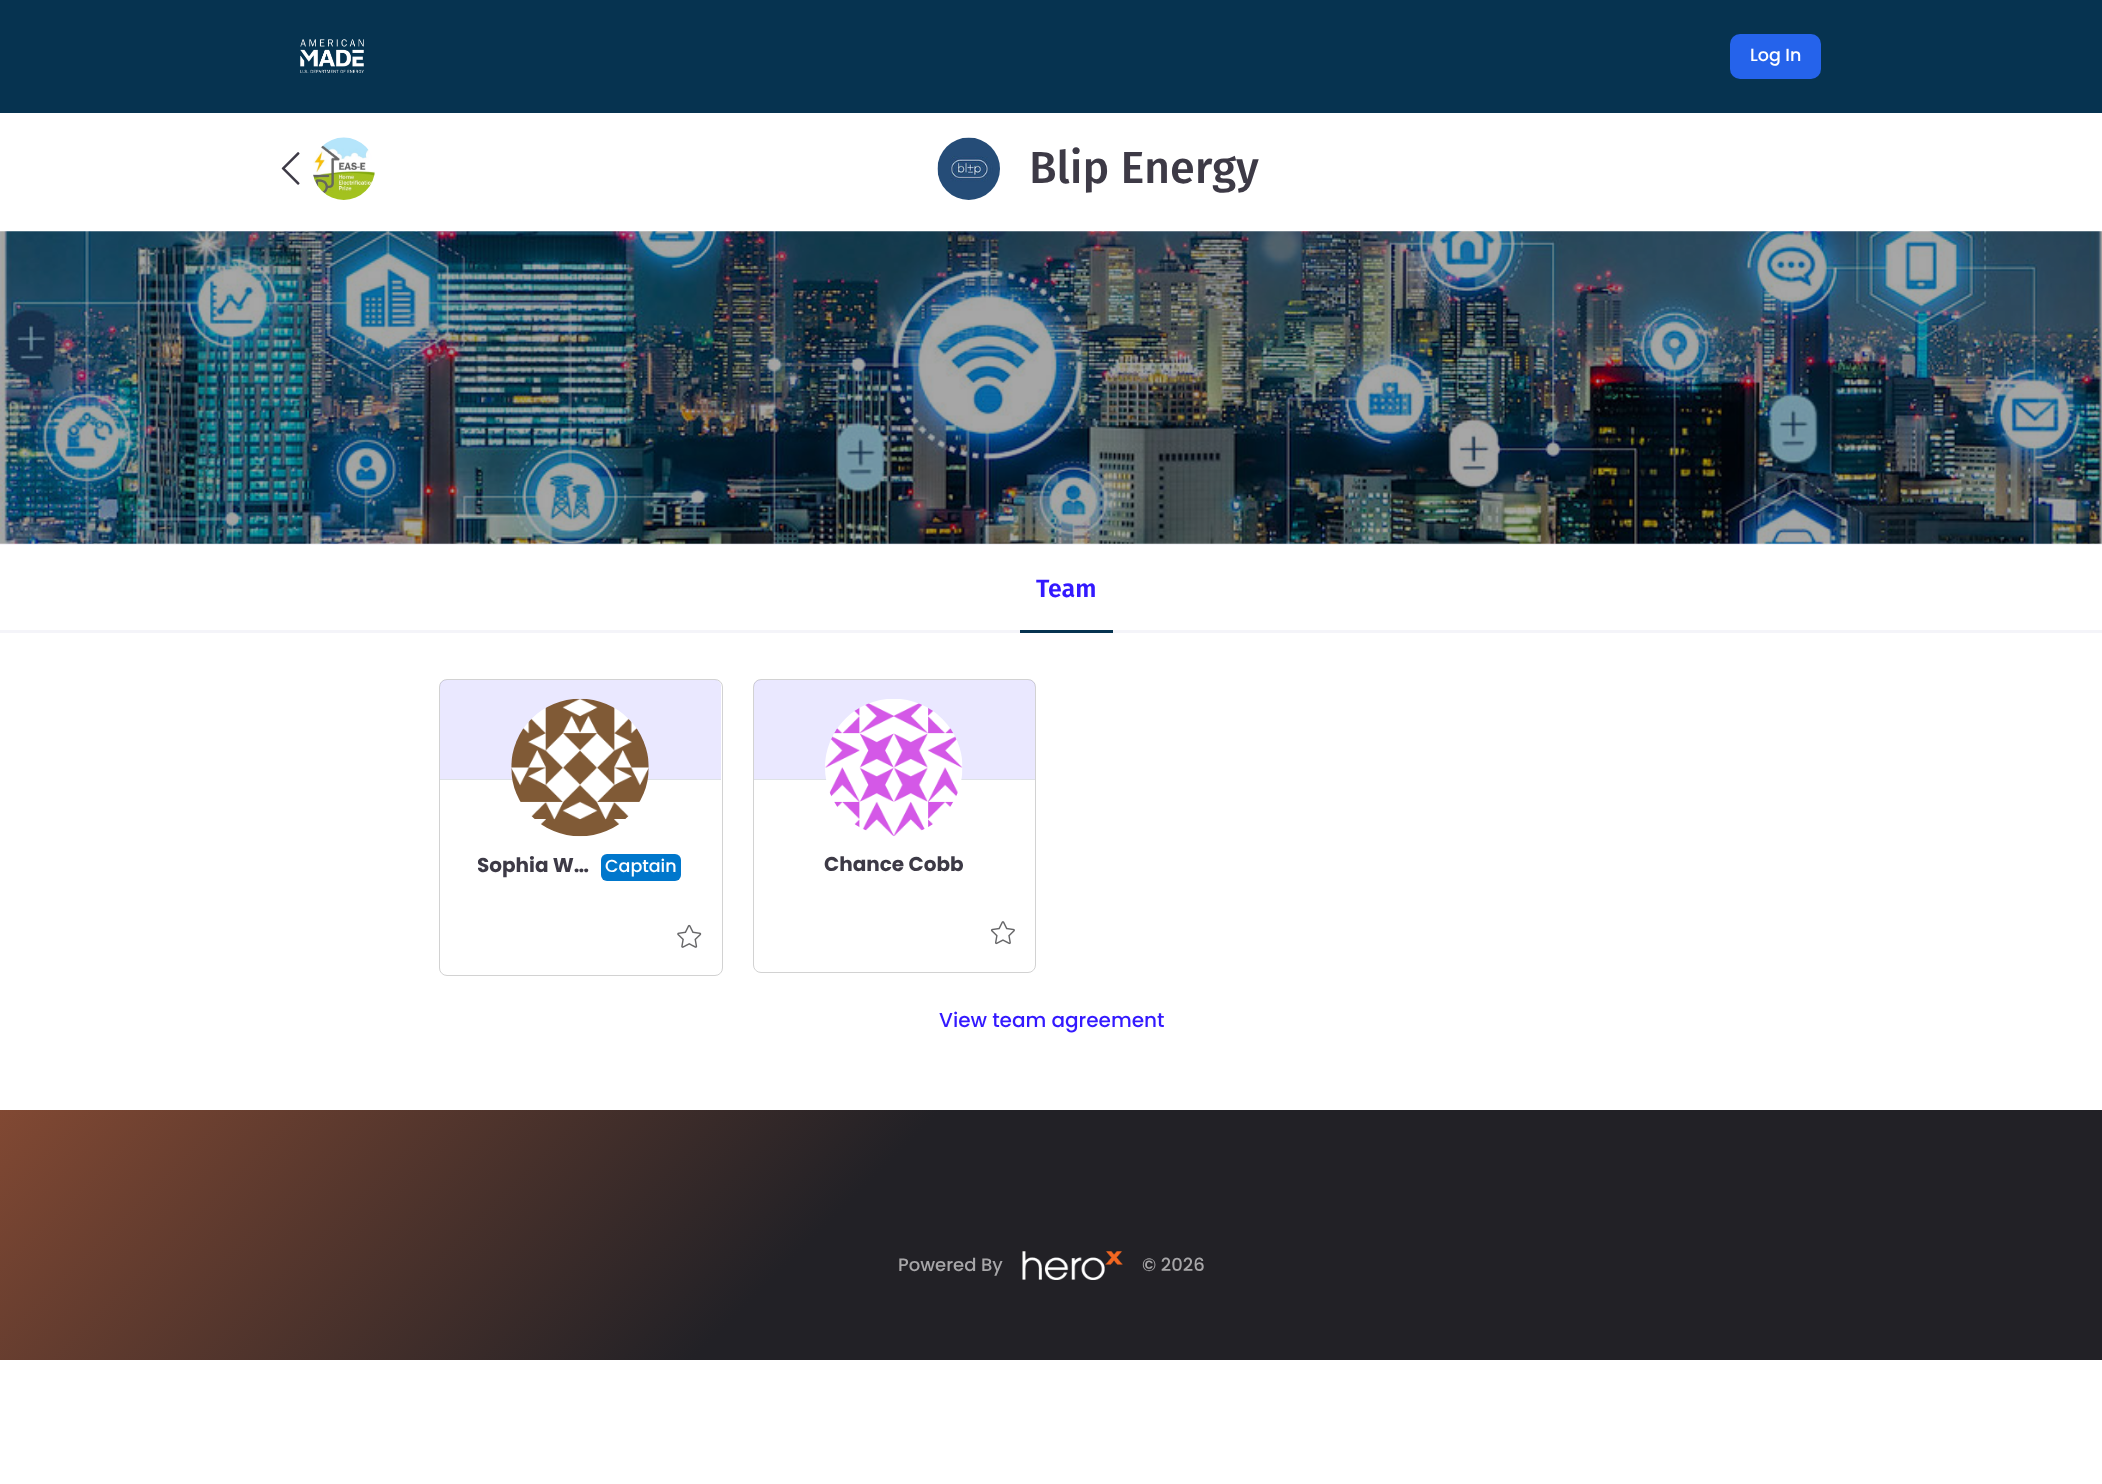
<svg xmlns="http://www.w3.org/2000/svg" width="2102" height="1484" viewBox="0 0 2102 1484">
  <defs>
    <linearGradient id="g1" gradientUnits="userSpaceOnUse" x1="-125" y1="59" x2="1639" y2="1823"><stop offset="0" stop-color="#f87a43"/><stop offset="0.6" stop-color="#222126"/><stop offset="1" stop-color="#222126"/></linearGradient>
    <clipPath id="clip1"><path d="M478 851h120v33H478z"/></clipPath>
  </defs>
  <rect width="100%" height="100%" fill="#fff"/>
  <path d="M0 0h2102v113H0z" fill="#063350"/>
  <image x="300" y="39" width="64" height="34" href="img/1.png"/>
  <rect x="1730" y="34" width="91" height="45" rx="10" fill="#2563eb"/>
  <image x="281" y="152" width="19" height="33" href="img/2.png"/>
  <image x="313" y="137" width="62" height="63" href="img/3.png"/>
  <image x="937" y="137" width="63" height="63" href="img/4.png"/>
  <image x="0" y="231" width="2102" height="313" href="img/5.png"/>
  <path d="M0 544h2102v1H0z" fill="#f4f4f9"/>
  <path d="M0 630h2102v3H0z" fill="#f4f4f9"/>
  <path d="M1020 630h93v3H1020z" fill="#063350"/>
  <rect x="439.5" y="679.5" width="283" height="296" rx="7.5" fill="none" stroke="#d2d2d2"/>
  <path d="M446 680H715C718.5 680 721 682.5 721 686V780H440V686C440 682.5 442.5 680 446 680Z" fill="#3319ff1a"/>
  <path d="M440 779h281v1H440z" fill="#dee2e6"/>
  <image x="511" y="698" width="138" height="139" href="img/6.png"/>
  <rect x="601" y="854" width="80" height="27" rx="6" fill="#07c"/>
  <image x="677" y="924" width="25" height="24" href="img/7.png"/>
  <rect x="753.5" y="679.5" width="282" height="293" rx="7.5" fill="none" stroke="#d2d2d2"/>
  <path d="M760 680H1029C1032.5 680 1035 682.5 1035 686V780H754V686C754 682.5 756.5 680 760 680Z" fill="#3319ff1a"/>
  <path d="M754 779h281v1H754z" fill="#dee2e6"/>
  <image x="825" y="699" width="138" height="138" href="img/8.png"/>
  <image x="990" y="921" width="25" height="24" href="img/9.png"/>
  <path d="M0 1110h2102v250H0z" fill="url(#g1)"/>
  <image x="1022" y="1251" width="101" height="29" href="img/10.png"/>
  <text x="1750" y="61" font-family="Poppins" font-size="17.5" font-weight="500" fill="#fff">Log In</text>
  <text x="1029" y="183" font-family="Fira Sans" font-size="45" font-weight="500" fill="#3d3a46">Blip Energy</text>
  <text x="1036" y="597" font-family="Fira Sans" font-size="25" font-weight="600" fill="#3319ff">Team</text>
  <g clip-path="url(#clip1)">
    <text x="477" y="872" font-family="Poppins" font-size="20" font-weight="bold" fill="#3d3a46">Sophia W…</text>
  </g>
  <text x="605" y="872" font-family="Poppins" font-size="17.5" font-weight="500" fill="#fff">Captain</text>
  <text x="824" y="871" font-family="Poppins" font-size="20" font-weight="bold" fill="#3d3a46">Chance Cobb</text>
  <text x="939" y="1027" font-family="Poppins" font-size="20" font-weight="500" fill="#3319ff">View team agreement</text>
  <g font-family="Poppins" font-size="18" font-weight="500" fill="#a7a6a8">
    <text x="898" y="1271">Powered By</text>
    <text x="1142" y="1271">© 2026</text>
  </g>
</svg>
